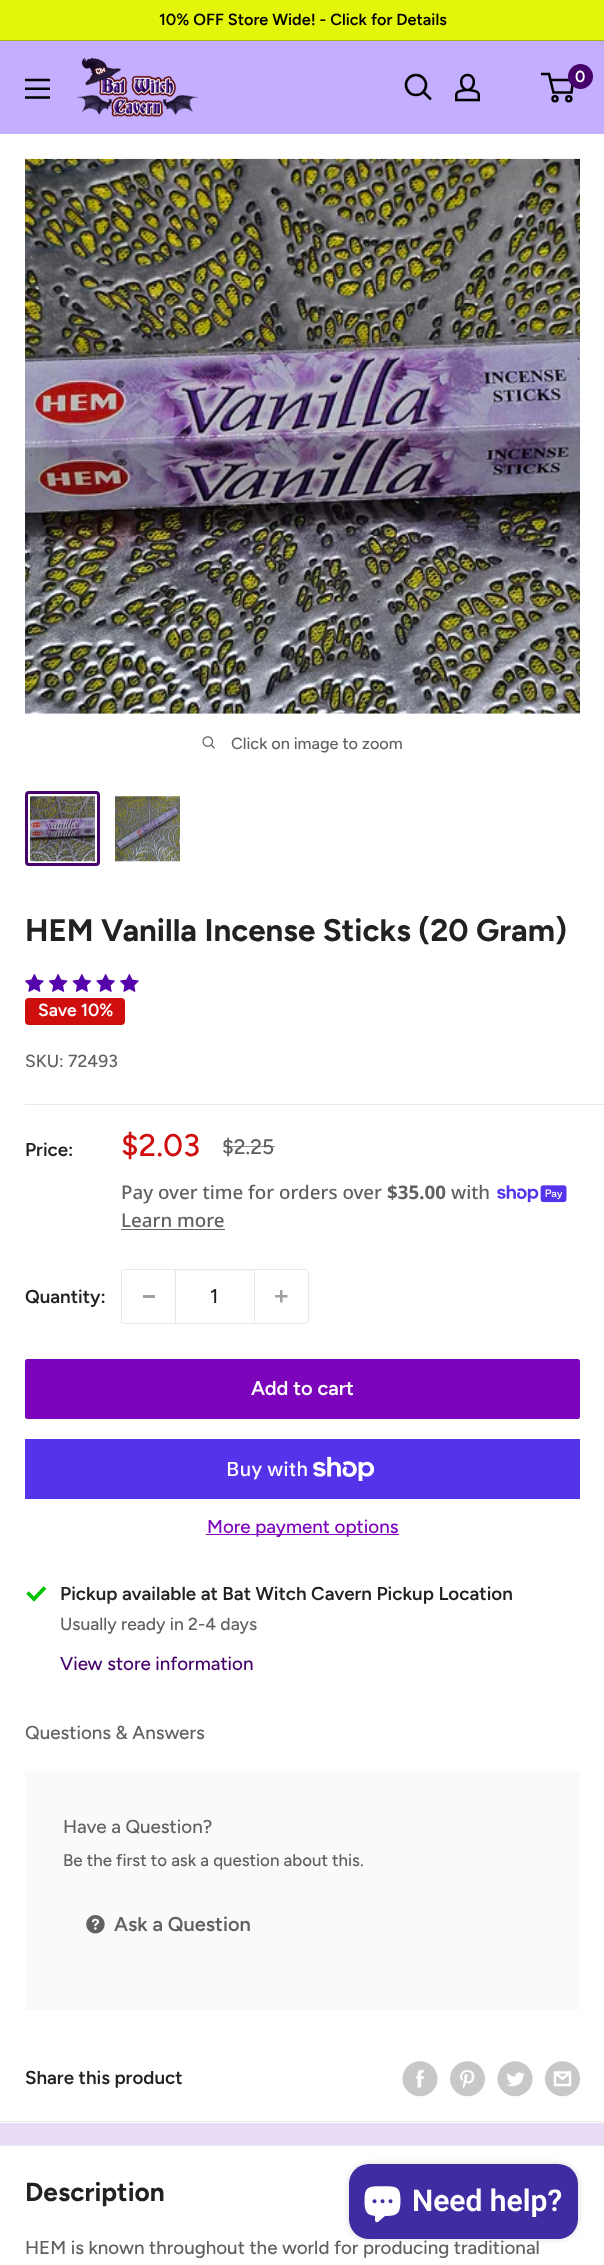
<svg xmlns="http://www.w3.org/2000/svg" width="604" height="2265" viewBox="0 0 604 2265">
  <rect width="100%" height="100%" fill="#e9dbf5"/>
  <path d="M0 0h604v40H0z" fill="#e3f50b"/>
  <path d="M0 40h604v1H0z" fill="#a9b512"/>
  <path d="M0 41h604v93H0z" fill="#c3aeff"/>
  <image x="77" y="57" width="121" height="60" href="img/1.png"/>
  <path d="M430 98.5L423.5 92" fill="none" stroke="#000" stroke-width="2.6" stroke-linecap="square"/>
  <circle cx="416" cy="85" r="10" fill="none" stroke="#000" stroke-width="2.6"/>
  <image x="455" y="73" width="25" height="29" href="img/2.png"/>
  <circle cx="555" cy="98.8" r="2.5" fill="none" stroke="#000" stroke-width="2.5"/>
  <circle cx="568.8" cy="98.8" r="2.5" fill="none" stroke="#000" stroke-width="2.5"/>
  <path d="M550.5 80H573L571.5 92.5H553.5L549 74H541" fill="none" stroke="#000" stroke-width="2.5"/>
  <circle cx="580.5" cy="76.5" r="12.5" fill="#46016a"/>
  <image x="25" y="78" width="25" height="21" href="img/3.png"/>
  <path d="M0 134h604v1989H0z" fill="#fff"/>
  <image x="25" y="158" width="555" height="556" href="img/4.png"/>
  <image x="202" y="736" width="13" height="13" href="img/5.png"/>
  <rect x="26.5" y="792.5" width="72" height="72" rx="2.5" fill="none" stroke="#46016a" stroke-width="3"/>
  <image x="30" y="796" width="65" height="66" href="img/6.png"/>
  <image x="115" y="796" width="65" height="66" href="img/7.png"/>
  <path d="M0 2121h604v1H0z" fill="#e8e8e8"/>
  <image x="25" y="974" width="19" height="18" href="img/8.png"/>
  <image x="48" y="974" width="20" height="18" href="img/9.png"/>
  <image x="72" y="974" width="20" height="18" href="img/10.png"/>
  <image x="96" y="974" width="19" height="18" href="img/11.png"/>
  <image x="120" y="974" width="19" height="18" href="img/8.png"/>
  <rect x="25" y="998" width="100" height="27" rx="4" fill="#cf0e0e"/>
  <path d="M25 1104h579v1H25z" fill="#e8e8e8"/>
  <image x="497" y="1185" width="70" height="18" href="img/12.png"/>
  <path d="M121 1229h104v1H121z" fill="#616161"/>
  <rect x="121.5" y="1269.5" width="187" height="54" rx="3.5" fill="none" stroke="#e8e8e8"/>
  <path d="M143 1295h12v3H143z" fill="#a0a0a0"/>
  <path d="M176 1270h78v1H176z" fill="#f6f6f6"/>
  <path d="M254 1270h1v53H254z" fill="#e8e8e8"/>
  <path d="M175 1270h1v53H175z" fill="#e8e8e8"/>
  <image x="275" y="1290" width="13" height="13" href="img/13.png"/>
  <rect x="25" y="1359" width="555" height="60" rx="2.5" fill="#7c04ba"/>
  <path d="M25 1439h555v60H25z" fill="#5433eb"/>
  <image x="313" y="1456" width="62" height="25" href="img/14.png"/>
  <path d="M206 1534h193v1H206z" fill="#7c04ba"/>
  <path d="M27.5 1592.5L34 1599L45 1587.5" fill="none" stroke="#00c200" stroke-width="3.8"/>
  <path d="M25 1771h555v239H25z" fill="#fafafa"/>
  <image x="86" y="1915" width="19" height="19" href="img/15.png"/>
  <image x="402" y="2061" width="36" height="36" href="img/16.png"/>
  <image x="450" y="2061" width="35" height="36" href="img/17.png"/>
  <image x="497" y="2061" width="36" height="36" href="img/18.png"/>
  <image x="545" y="2061" width="35" height="36" href="img/19.png"/>
  <path d="M0 2146h604v119H0z" fill="#fff"/>
  <path d="M0 2145h604v1H0z" fill="#e8e8e8"/>
  <rect x="349" y="2164" width="229" height="75" rx="20" fill="#00000026" filter="blur(3px)"/>
  <rect x="349" y="2164" width="229" height="75" rx="20" fill="#402ba2"/>
  <image x="364" y="2186" width="37" height="37" href="img/20.png"/>
  <text x="159" y="25" font-family="Figtree" font-size="16.25" font-weight="600" fill="#000">10% OFF Store Wide! - Click for Details</text>
  <text x="575" y="82" font-family="Figtree" font-size="16" font-weight="600" fill="#fff">0</text>
  <text x="231" y="749" font-family="Figtree" font-size="16.25" font-weight="500" fill="#616161">Click on image to zoom</text>
  <text x="25" y="941" font-family="Figtree" font-size="31.25" font-weight="bold" fill="#222021">HEM Vanilla Incense Sticks (20 Gram)</text>
  <text x="38" y="1016" font-family="Figtree" font-size="17.5" font-weight="600" fill="#fff">Save 10%</text>
  <text x="25" y="1067" font-family="Figtree" font-size="17.5" font-weight="500" fill="#616161">SKU: 72493</text>
  <text x="25" y="1156" font-family="Figtree" font-size="18.75" font-weight="600" fill="#222021">Price:</text>
  <text x="121" y="1156" font-family="Figtree" font-size="31.25" font-weight="500" fill="#cf0e0e">$2.03</text>
  <text x="222" y="1154" font-family="Figtree" font-size="21" font-weight="500" fill="#616161">$2.25</text>
  <path d="M223 1146h52v1H223z" fill="#616161b3"/>
  <text x="121" y="1199" font-family="Noto Sans" font-size="18.75" font-weight="500" fill="#616161">Pay over time for orders over</text>
  <text x="387" y="1199" font-family="Noto Sans" font-size="18.75" font-weight="bold" fill="#616161">$35.00</text>
  <g font-family="Noto Sans" font-size="18.75" font-weight="500" fill="#616161">
    <text x="451" y="1199">with</text>
    <text x="121" y="1227">Learn more</text>
  </g>
  <text x="25" y="1303" font-family="Figtree" font-size="18.75" font-weight="600" fill="#222021">Quantity:</text>
  <text x="210" y="1303" font-family="Figtree" font-size="20" font-weight="500" fill="#222021">1</text>
  <text x="251" y="1395" font-family="Figtree" font-size="20" font-weight="600" fill="#fff">Add to cart</text>
  <text x="226" y="1476" font-family="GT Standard" font-size="20" font-weight="500" fill="#fff">Buy with</text>
  <text x="207" y="1533" font-family="Figtree" font-size="18.75" font-weight="500" fill="#7c04ba">More payment options</text>
  <text x="60" y="1600" font-family="Figtree" font-size="18.75" font-weight="600" fill="#222021">Pickup available at Bat Witch Cavern Pickup Location</text>
  <text x="60" y="1630" font-family="Figtree" font-size="17.5" font-weight="500" fill="#616161">Usually ready in 2-4 days</text>
  <text x="60" y="1670" font-family="Figtree" font-size="18.75" font-weight="500" fill="#46016a">View store information</text>
  <g font-family="Figtree" font-size="18.75" font-weight="500" fill="#616161">
    <text x="25" y="1739">Questions &amp; Answers</text>
    <text x="63" y="1833">Have a Question?</text>
  </g>
  <text x="63" y="1866" font-family="Figtree" font-size="16.9" font-weight="500" fill="#616161">Be the first to ask a question about this.</text>
  <text x="114" y="1931" font-family="Figtree" font-size="20" font-weight="600" fill="#616161">Ask a Question</text>
  <text x="25" y="2084" font-family="Figtree" font-size="18.75" font-weight="600" fill="#222021">Share this product</text>
  <text x="25" y="2201" font-family="Figtree" font-size="26.25" font-weight="bold" fill="#222021">Description</text>
  <text x="25" y="2254" font-family="Figtree" font-size="18.75" font-weight="500" fill="#616161">HEM is known throughout the world for producing traditional</text>
  <text x="412" y="2211" font-family="Roboto" font-size="30" font-weight="600" fill="#fff">Need help?</text>
</svg>
